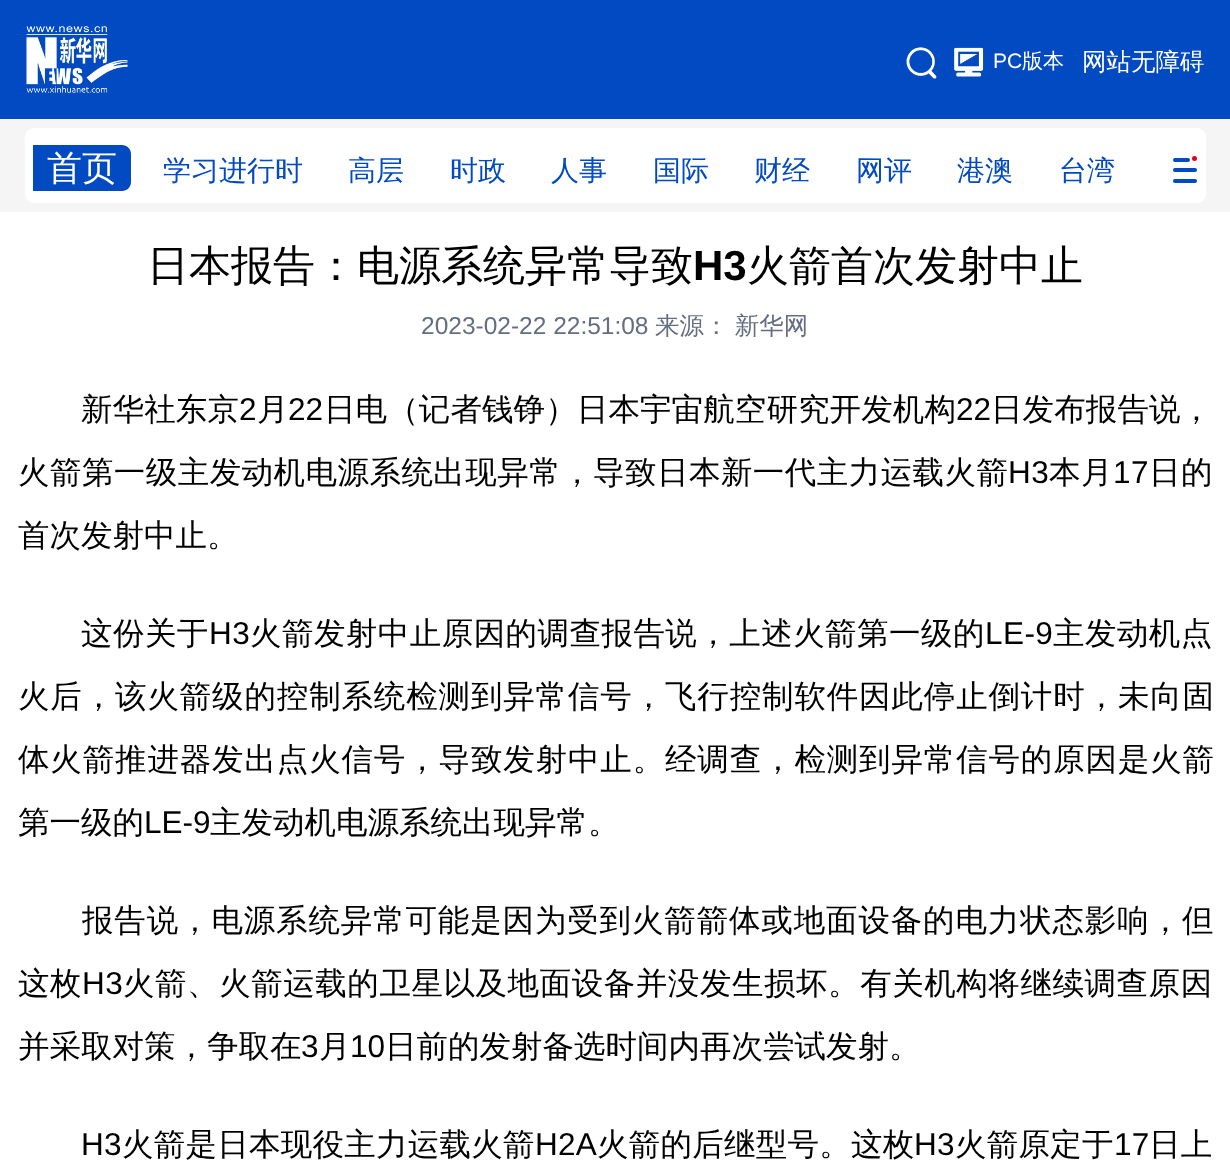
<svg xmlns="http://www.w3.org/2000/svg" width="1230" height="1172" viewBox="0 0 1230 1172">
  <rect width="100%" height="100%" fill="#fff"/>
  <path d="M0 0h1230v119H0z" fill="#024ac2"/>
  <image x="26" y="26" width="102" height="67" href="img/1.png"/>
  <image x="906" y="47" width="31" height="32" href="img/2.png"/>
  <image x="954" y="47" width="30" height="30" href="img/3.png"/>
  <path d="M0 119h1230v93H0z" fill="#f5f5f5"/>
  <rect x="25" y="128" width="1181" height="75" rx="9" fill="#fff"/>
  <path d="M33 145H122C127 145 131 149 131 154V182C131 187 127 191 122 191H33Z" fill="#024ac2"/>
  <rect x="1173" y="158" width="17" height="4" rx="2" fill="#024ac2"/>
  <circle cx="1194.5" cy="158.5" r="2.5" fill="#e50020"/>
  <rect x="1173" y="168" width="24" height="4" rx="2" fill="#024ac2"/>
  <rect x="1173" y="179" width="24" height="4" rx="2" fill="#024ac2"/>
  <text x="993" y="68" font-family="Liberation Sans" font-size="21" fill="#fff">PC</text>
  <text x="1022" y="68" font-family="WenQuanYi Zen Hei" font-size="21" font-weight="500" fill="#fff">版本</text>
  <text x="1082" y="70" font-family="WenQuanYi Zen Hei" font-size="24.5" font-weight="500" fill="#fff">网站无障碍</text>
  <text x="47" y="180" font-family="WenQuanYi Zen Hei" font-size="35" font-weight="500" fill="#fff">首页</text>
  <g font-family="WenQuanYi Zen Hei" font-size="28" font-weight="500" fill="#024ac2">
    <text x="163" y="180">学习进行时</text>
    <text x="348" y="180">高层</text>
    <text x="450" y="180">时政</text>
    <text x="551" y="180">人事</text>
    <text x="653" y="180">国际</text>
    <text x="754" y="180">财经</text>
    <text x="856" y="180">网评</text>
    <text x="957" y="180">港澳</text>
    <text x="1059" y="180">台湾</text>
  </g>
  <text x="147" y="280" font-family="WenQuanYi Zen Hei" font-size="42" font-weight="500" fill="#000">日本报告：电源系统异常导致</text>
  <text x="693" y="280" font-family="Liberation Sans" font-size="42" font-weight="bold" fill="#000">H3</text>
  <text x="747" y="280" font-family="WenQuanYi Zen Hei" font-size="42" font-weight="500" fill="#000">火箭首次发射中止</text>
  <text x="421" y="334" font-family="Liberation Sans" font-size="24.5" fill="#646d81">2023-02-22 22:51:08</text>
  <text x="655" y="334" word-spacing="-1" font-family="WenQuanYi Zen Hei" font-size="24.5" font-weight="500" fill="#646d81">来源： 新华网</text>
  <text x="81" y="420" font-family="WenQuanYi Zen Hei" font-size="31.5" font-weight="500" letter-spacing="0.1" fill="#000">新华社东京</text>
  <text x="239" y="420" font-family="Liberation Sans" font-size="31.5" letter-spacing="0.1" fill="#000">2</text>
  <text x="257" y="420" font-family="WenQuanYi Zen Hei" font-size="31.5" font-weight="500" letter-spacing="0.1" fill="#000">月</text>
  <text x="288" y="420" font-family="Liberation Sans" font-size="31.5" letter-spacing="0.1" fill="#000">22</text>
  <text x="324" y="420" font-family="WenQuanYi Zen Hei" font-size="31.5" font-weight="500" letter-spacing="0.1" fill="#000">日电（记者钱铮）日本宇宙航空研究开发机构</text>
  <text x="956" y="420" font-family="Liberation Sans" font-size="31.5" letter-spacing="0.1" fill="#000">22</text>
  <text x="991" y="420" font-family="WenQuanYi Zen Hei" font-size="31.5" font-weight="500" letter-spacing="0.1" fill="#000">日发布报告说，</text>
  <text x="18" y="483" font-family="WenQuanYi Zen Hei" font-size="31.5" font-weight="500" letter-spacing="0.45" fill="#000">火箭第一级主发动机电源系统出现异常，导致日本新一代主力运载火箭</text>
  <text x="1008" y="483" font-family="Liberation Sans" font-size="31.5" letter-spacing="0.45" fill="#000">H3</text>
  <text x="1049" y="483" font-family="WenQuanYi Zen Hei" font-size="31.5" font-weight="500" letter-spacing="0.45" fill="#000">本月</text>
  <text x="1113" y="483" font-family="Liberation Sans" font-size="31.5" letter-spacing="0.45" fill="#000">17</text>
  <text x="1149" y="483" font-family="WenQuanYi Zen Hei" font-size="31.5" font-weight="500" letter-spacing="0.45" fill="#000">日的</text>
  <text x="18" y="546" font-family="WenQuanYi Zen Hei" font-size="31.5" font-weight="500" fill="#000">首次发射中止。</text>
  <text x="81" y="644" font-family="WenQuanYi Zen Hei" font-size="31.5" font-weight="500" letter-spacing="0.45" fill="#000">这份关于</text>
  <text x="209" y="644" font-family="Liberation Sans" font-size="31.5" letter-spacing="0.45" fill="#000">H3</text>
  <text x="250" y="644" font-family="WenQuanYi Zen Hei" font-size="31.5" font-weight="500" letter-spacing="0.45" fill="#000">火箭发射中止原因的调查报告说，上述火箭第一级的</text>
  <text x="985" y="644" font-family="Liberation Sans" font-size="31.5" letter-spacing="0.45" fill="#000">LE-9</text>
  <text x="1053" y="644" font-family="WenQuanYi Zen Hei" font-size="31.5" font-weight="500" letter-spacing="0.45" fill="#000">主发动机点</text>
  <g font-family="WenQuanYi Zen Hei" font-size="31.5" font-weight="500" letter-spacing="0.85" fill="#000">
    <text x="18" y="707">火后，该火箭级的控制系统检测到异常信号，飞行控制软件因此停止倒计时，未向固</text>
    <text x="18" y="770">体火箭推进器发出点火信号，导致发射中止。经调查，检测到异常信号的原因是火箭</text>
  </g>
  <text x="18" y="833" font-family="WenQuanYi Zen Hei" font-size="31.5" font-weight="500" fill="#000">第一级的</text>
  <text x="144" y="833" font-family="Liberation Sans" font-size="31.5" fill="#000">LE-9</text>
  <text x="210" y="833" font-family="WenQuanYi Zen Hei" font-size="31.5" font-weight="500" fill="#000">主发动机电源系统出现异常。</text>
  <text x="82" y="931" font-family="WenQuanYi Zen Hei" font-size="31.5" font-weight="500" letter-spacing="0.85" fill="#000">报告说，电源系统异常可能是因为受到火箭箭体或地面设备的电力状态影响，但</text>
  <text x="18" y="994" font-family="WenQuanYi Zen Hei" font-size="31.5" font-weight="500" letter-spacing="0.55" fill="#000">这枚</text>
  <text x="82" y="994" font-family="Liberation Sans" font-size="31.5" letter-spacing="0.55" fill="#000">H3</text>
  <text x="123" y="994" font-family="WenQuanYi Zen Hei" font-size="31.5" font-weight="500" letter-spacing="0.55" fill="#000">火箭、火箭运载的卫星以及地面设备并没发生损坏。有关机构将继续调查原因</text>
  <text x="18" y="1057" font-family="WenQuanYi Zen Hei" font-size="31.5" font-weight="500" fill="#000">并采取对策，争取在</text>
  <text x="301" y="1057" font-family="Liberation Sans" font-size="31.5" fill="#000">3</text>
  <text x="319" y="1057" font-family="WenQuanYi Zen Hei" font-size="31.5" font-weight="500" fill="#000">月</text>
  <text x="350" y="1057" font-family="Liberation Sans" font-size="31.5" fill="#000">10</text>
  <text x="385" y="1057" font-family="WenQuanYi Zen Hei" font-size="31.5" font-weight="500" fill="#000">日前的发射备选时间内再次尝试发射。</text>
  <text x="81" y="1155" font-family="Liberation Sans" font-size="31.5" letter-spacing="0.25" fill="#000">H3</text>
  <text x="122" y="1155" font-family="WenQuanYi Zen Hei" font-size="31.5" font-weight="500" letter-spacing="0.25" fill="#000">火箭是日本现役主力运载火箭</text>
  <text x="535" y="1155" font-family="Liberation Sans" font-size="31.5" letter-spacing="0.25" fill="#000">H2A</text>
  <text x="597" y="1155" font-family="WenQuanYi Zen Hei" font-size="31.5" font-weight="500" letter-spacing="0.25" fill="#000">火箭的后继型号。这枚</text>
  <text x="914" y="1155" font-family="Liberation Sans" font-size="31.5" letter-spacing="0.25" fill="#000">H3</text>
  <text x="955" y="1155" font-family="WenQuanYi Zen Hei" font-size="31.5" font-weight="500" letter-spacing="0.25" fill="#000">火箭原定于</text>
  <text x="1114" y="1155" font-family="Liberation Sans" font-size="31.5" letter-spacing="0.25" fill="#000">17</text>
  <text x="1149" y="1155" font-family="WenQuanYi Zen Hei" font-size="31.5" font-weight="500" letter-spacing="0.25" fill="#000">日上</text>
</svg>
